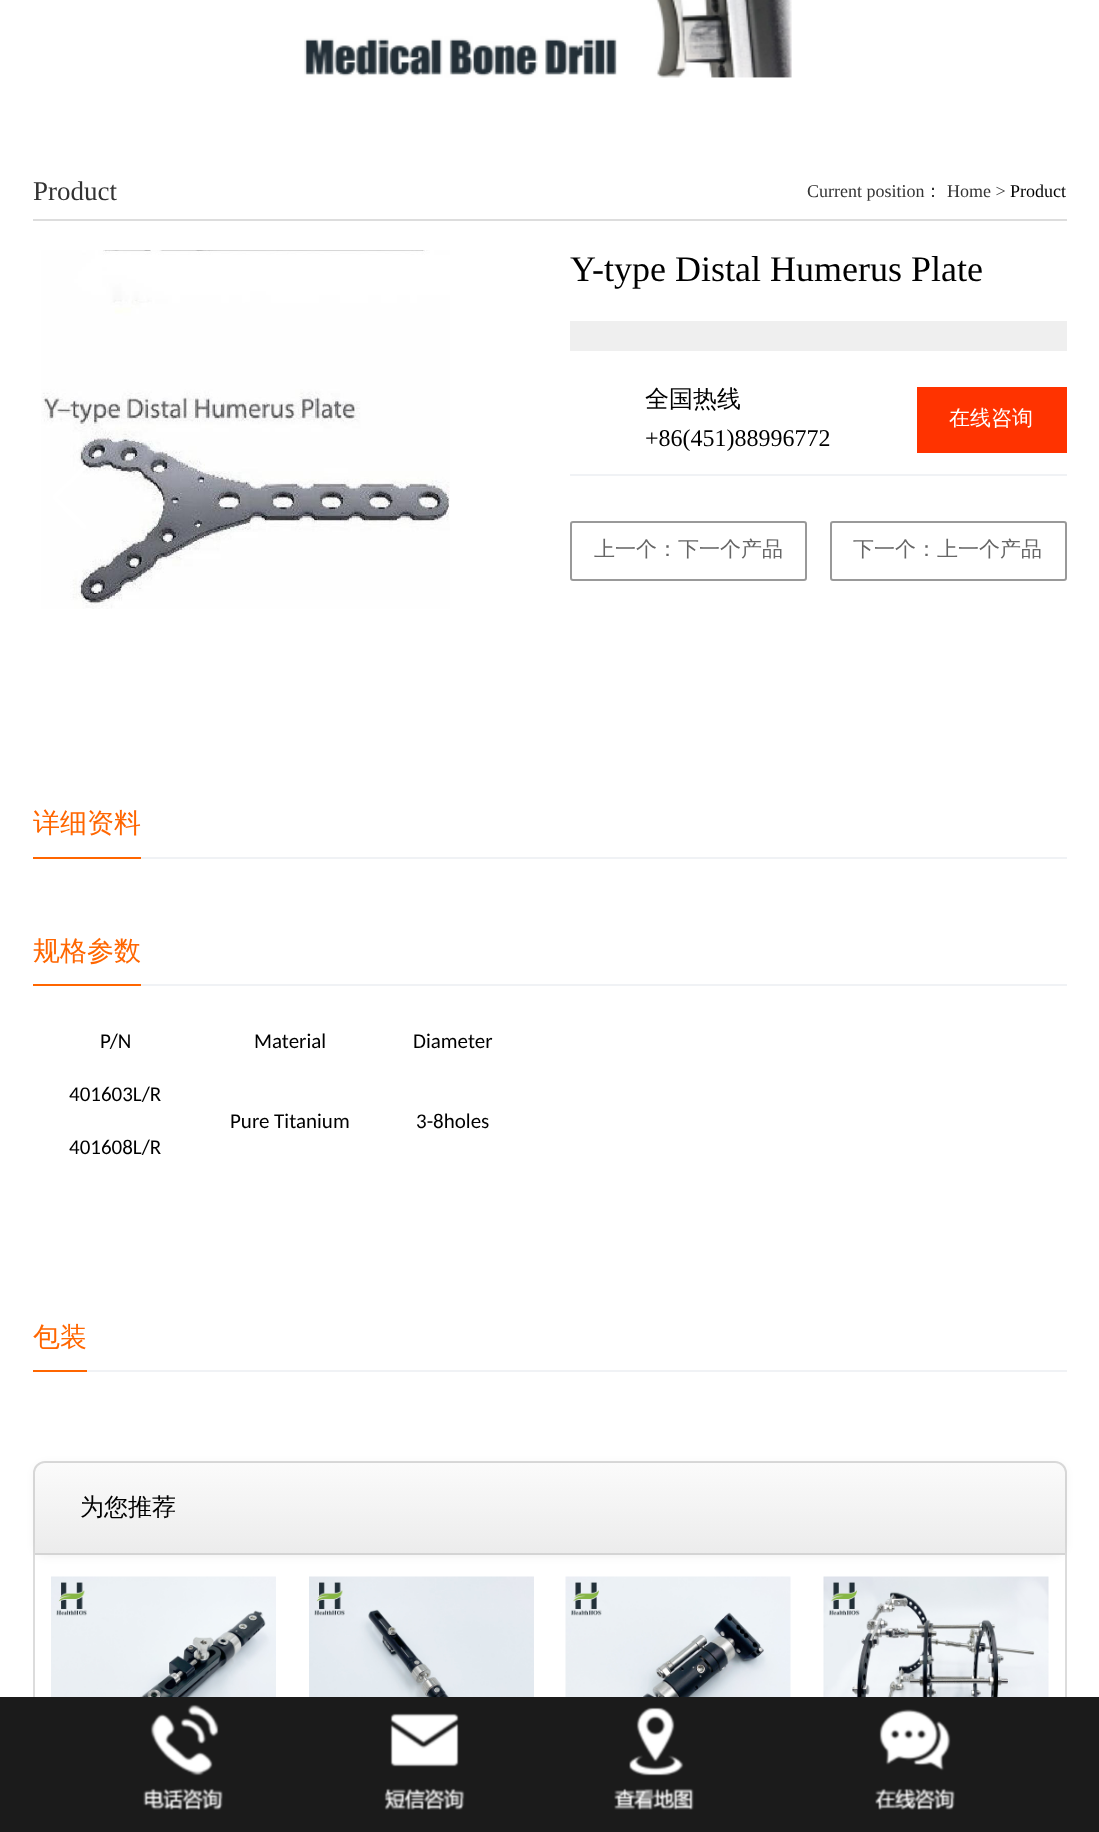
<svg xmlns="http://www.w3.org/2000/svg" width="1099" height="1832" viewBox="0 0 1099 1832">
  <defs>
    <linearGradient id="g1" gradientUnits="userSpaceOnUse" x1="550" y1="1463" x2="550" y2="1553"><stop offset="0" stop-color="#fbfbfb"/><stop offset="1" stop-color="#ececec"/></linearGradient>
  </defs>
  <rect width="100%" height="100%" fill="#fff"/>
  <image x="304" y="0" width="488" height="78" href="img/1.png"/>
  <path d="M33 219h1034v2H33z" fill="#ddd"/>
  <image x="41" y="250" width="409" height="359" href="img/2.png"/>
  <path d="M83 466C84 464 87 465 87 467C87 469 61 494 57 497L86 526V528C85 532 81 527 78 524L58 504C51 497 51 498 58 490Z" fill="#fff"/>
  <path d="M570 474h497v2H570z" fill="#f0f2f5"/>
  <path d="M570 321h497v30H570z" fill="#efefef"/>
  <path d="M917 387h150v66H917z" fill="#f30"/>
  <rect x="571" y="522" width="235" height="58" rx="2" fill="none" stroke="#999" stroke-width="2"/>
  <rect x="831" y="522" width="235" height="58" rx="2" fill="none" stroke="#999" stroke-width="2"/>
  <path d="M141 857h926v2H141z" fill="#f0f2f5"/>
  <path d="M33 857h108v2H33z" fill="#f60"/>
  <path d="M141 984h926v2H141z" fill="#f0f2f5"/>
  <path d="M33 984h108v2H33z" fill="#f60"/>
  <path d="M87 1370h980v2H87z" fill="#f0f2f5"/>
  <path d="M33 1370h54v2H33z" fill="#f60"/>
  <rect x="34" y="1462" width="1032" height="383" rx="11" fill="none" stroke="#dcdcdc" stroke-width="2"/>
  <rect x="35" y="1464" width="1030" height="92" rx="12" fill="#0000000f" filter="blur(5px)"/>
  <path d="M47 1463H1053C1059.5 1463 1065 1468.5 1065 1475V1553H35V1475C35 1468.5 40.5 1463 47 1463Z" fill="url(#g1)"/>
  <path d="M35 1553h1030v2H35z" fill="#d4d4d4"/>
  <image x="51" y="1576" width="225" height="121" href="img/3.png"/>
  <image x="309" y="1576" width="225" height="121" href="img/4.png"/>
  <image x="565" y="1576" width="226" height="121" href="img/5.png"/>
  <image x="823" y="1576" width="226" height="121" href="img/6.png"/>
  <path d="M0 1697h1099v135H0z" fill="#1b1b1b"/>
  <image x="143" y="1704" width="80" height="106" href="img/7.png"/>
  <image x="384" y="1713" width="81" height="97" href="img/8.png"/>
  <image x="614" y="1707" width="80" height="103" href="img/9.png"/>
  <image x="875" y="1709" width="80" height="101" href="img/10.png"/>
  <text x="33" y="200" font-family="Liberation Serif" font-size="27" fill="#333">Product</text>
  <text x="807" y="197" font-family="Liberation Serif" font-size="18" fill="#333">Current position</text>
  <text x="924" y="197" font-family="WenQuanYi Zen Hei" font-size="18" font-weight="500" fill="#333">：</text>
  <text x="947" y="197" font-family="Liberation Serif" font-size="18" fill="#333">Home &gt;</text>
  <text x="1010" y="197" font-family="Liberation Serif" font-size="18" fill="#000">Product</text>
  <text x="570" y="281" font-family="Liberation Serif" font-size="36" fill="#000">Y-type Distal Humerus Plate</text>
  <text x="645" y="407" font-family="WenQuanYi Zen Hei" font-size="24" font-weight="500" fill="#000">全国热线</text>
  <text x="645" y="446" font-family="Liberation Serif" font-size="24" fill="#000">+86(451)88996772</text>
  <text x="949" y="425" font-family="WenQuanYi Zen Hei" font-size="21" font-weight="500" fill="#fff">在线咨询</text>
  <g font-family="WenQuanYi Zen Hei" font-size="21" font-weight="500" fill="#666">
    <text x="594" y="556">上一个：下一个产品</text>
    <text x="853" y="556">下一个：上一个产品</text>
  </g>
  <g font-family="WenQuanYi Zen Hei" font-size="27" font-weight="500" fill="#f60">
    <text x="33" y="832">详细资料</text>
    <text x="33" y="960">规格参数</text>
  </g>
  <g font-family="Carlito" font-size="21" fill="#000">
    <text x="100" y="1048">P/N</text>
    <text x="254" y="1048">Material</text>
    <text x="413" y="1048">Diameter</text>
    <text x="69" y="1101">401603L/R</text>
    <text x="69" y="1154">401608L/R</text>
    <text x="230" y="1128">Pure Titanium</text>
    <text x="416" y="1128">3-8holes</text>
  </g>
  <text x="33" y="1346" font-family="WenQuanYi Zen Hei" font-size="27" font-weight="500" fill="#f60">包装</text>
  <text x="80" y="1515" font-family="WenQuanYi Zen Hei" font-size="24" font-weight="500" fill="#000">为您推荐</text>
</svg>
